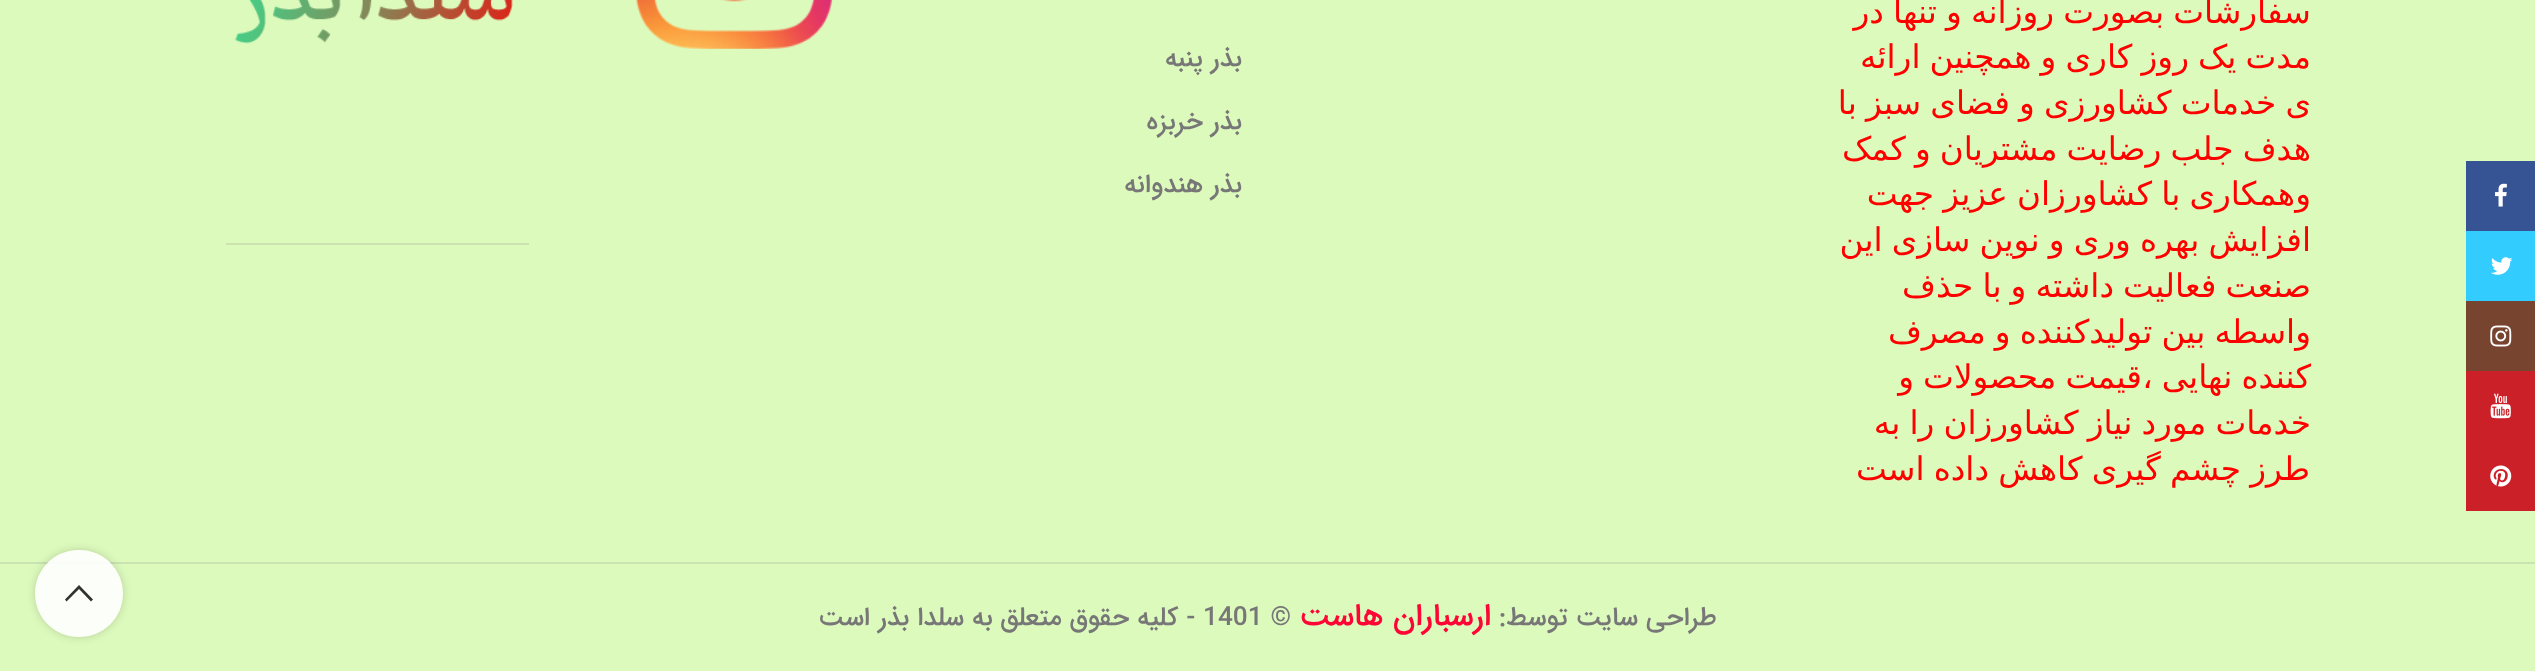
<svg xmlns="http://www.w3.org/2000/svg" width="2535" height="671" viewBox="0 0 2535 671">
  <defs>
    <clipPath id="clip1"><path d="M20 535H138V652H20ZM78.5 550H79.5C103.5 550 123 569.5 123 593.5C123 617.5 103.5 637 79.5 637H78.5C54.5 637 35 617.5 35 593.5C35 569.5 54.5 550 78.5 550Z" clip-rule="evenodd"/></clipPath>
  </defs>
  <rect width="100%" height="100%" fill="#ddfabd"/>
  <path d="M2466 161h69v70H2466z" fill="#365493"/>
  <image x="2495" y="183" width="12" height="24" href="img/1.png"/>
  <path d="M2466 231h69v70H2466z" fill="#3cf"/>
  <image x="2491" y="257" width="22" height="18" href="img/2.png"/>
  <path d="M2466 301h69v70H2466z" fill="#774430"/>
  <image x="2490" y="325" width="22" height="22" href="img/3.png"/>
  <path d="M2466 371h69v140H2466z" fill="#cb2027"/>
  <image x="2490" y="393" width="21" height="26" href="img/4.png"/>
  <image x="2490" y="465" width="22" height="22" href="img/5.png"/>
  <image x="636" y="0" width="197" height="49" href="img/6.png"/>
  <path d="M226 243h303v2H226z" fill="#cbe2b1"/>
  <image x="235" y="0" width="278" height="44" href="img/7.png"/>
  <path d="M0 562h2535v2H0z" fill="#cbe2b1"/>
  <g clip-path="url(#clip1)">
    <rect x="35" y="550" width="88" height="87" rx="43.5" fill="#0000002b" filter="blur(4.5px)"/>
  </g>
  <rect x="35" y="550" width="88" height="87" rx="43.5" fill="#ffffffe6"/>
  <path d="M79 585L93 599.5L91 601.5L79 589L66.5 601.5L65 599.5Z" fill="#333"/>
  <g font-family="DejaVu Sans" font-size="32.7" direction="rtl" fill="#f00">
    <text x="2311" y="23" word-spacing="-1.25">سفارشات بصورت روزانه و تنها در</text>
    <text x="2311" y="68" word-spacing="-1.25">مدت یک روز کاری و همچنین ارائه</text>
    <text x="2311" y="114" word-spacing="-1.25">ی خدمات کشاورزی و فضای سبز با</text>
    <text x="2311" y="160" word-spacing="-1.25">هدف جلب رضایت مشتریان و کمک</text>
    <text x="2311" y="205">و</text>
    <text x="2295" y="205" word-spacing="-1.25">همکاری با کشاورزان عزیز جهت</text>
    <text x="2311" y="251" word-spacing="-1.25">افزایش بهره وری و نوین سازی این</text>
    <text x="2311" y="297" word-spacing="-1.25">صنعت فعالیت داشته و با حذف</text>
    <text x="2311" y="343" word-spacing="-1.25">واسطه بین تولیدکننده و مصرف</text>
    <text x="2311" y="388" word-spacing="-1.25">کننده نهایی ،</text>
    <text x="2142" y="388" word-spacing="-1.25">قیمت محصولات و</text>
    <text x="2311" y="434" word-spacing="-1.25">خدمات مورد نیاز کشاورزان را به</text>
    <text x="2310" y="480" word-spacing="-1.25">طرز چشم گیری کاهش داده است</text>
  </g>
  <g font-family="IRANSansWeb" font-size="26.25" font-weight="500" direction="rtl" fill="#777">
    <text x="1242" y="66">بذر پنبه</text>
    <text x="1242" y="129">بذر خربزه</text>
    <text x="1242" y="192">بذر هندوانه</text>
    <text x="1717" y="625">طراحی سایت توسط:</text>
  </g>
  <text x="1491" y="625" font-family="IRANSansWeb" font-size="31.5" font-weight="500" direction="rtl" fill="#fd0534">ارسباران هاست</text>
  <text x="1203" y="625" font-family="IRANSansWeb" font-size="26.25" font-weight="500" fill="#777">1401 ©</text>
  <g font-family="IRANSansWeb" font-size="26.25" font-weight="500" direction="rtl" fill="#777">
    <text x="1195" y="625">- کلیه حقوق متعلق به سلدا بذر</text>
    <text x="870" y="625">است</text>
  </g>
</svg>
